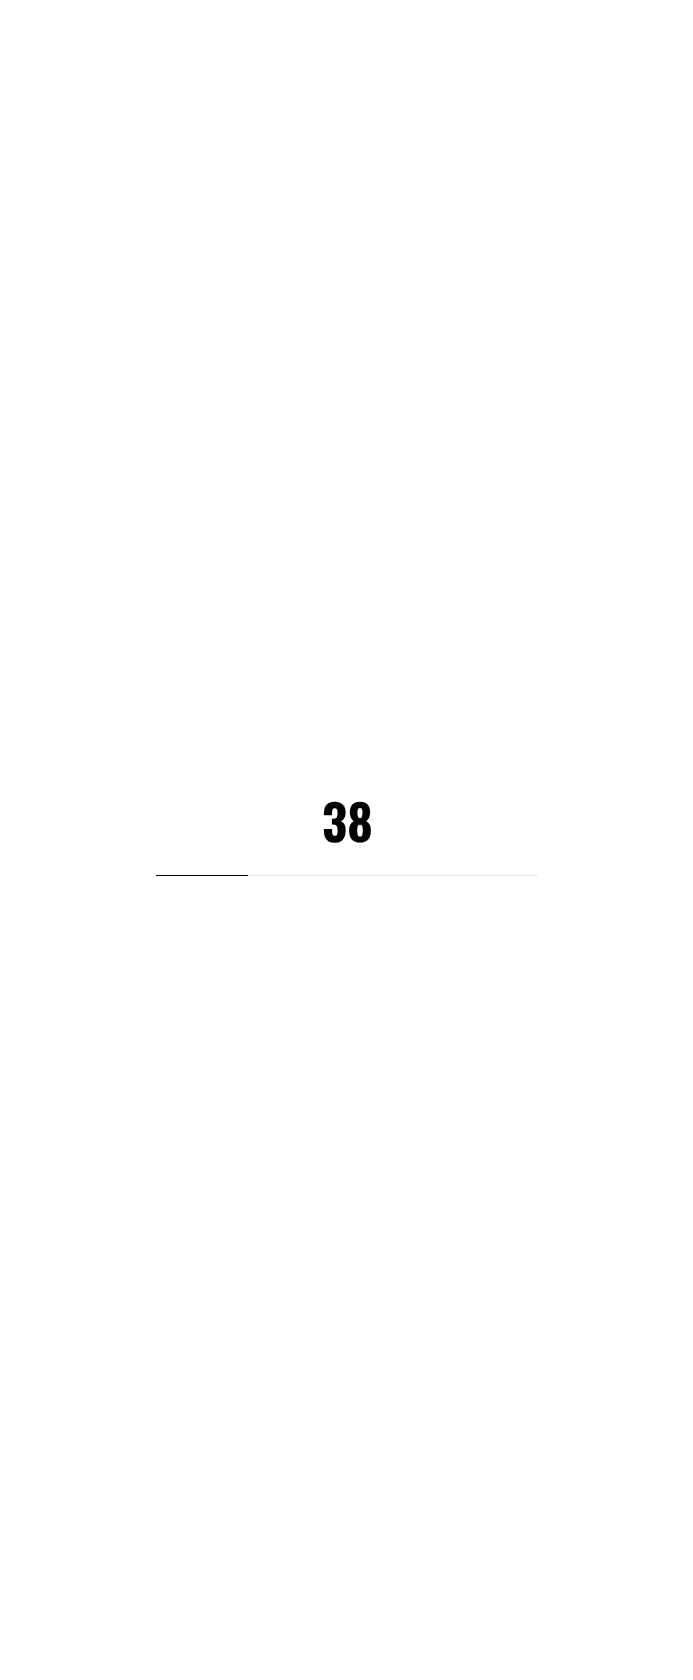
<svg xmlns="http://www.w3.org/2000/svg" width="693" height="1680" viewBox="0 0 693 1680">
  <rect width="100%" height="100%" fill="#fff"/>
  <path d="M248 875h290v1H248z" fill="#e6e6e6"/>
  <path d="M156 875h92v1H156z" fill="#000"/>
  <text x="322" y="842" font-family="Oswald" font-size="49" font-weight="bold" fill="#000">38</text>
</svg>
